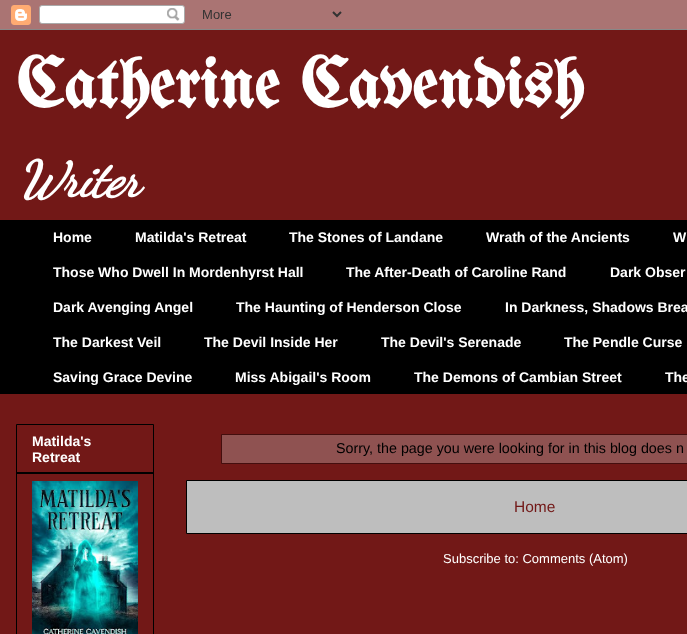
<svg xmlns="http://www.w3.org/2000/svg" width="687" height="634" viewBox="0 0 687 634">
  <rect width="100%" height="100%" fill="#721817"/>
  <image x="0" y="0" width="687" height="30" href="img/1.png"/>
  <path d="M0 220h687v174H0z" fill="#000"/>
  <path d="M16.5 424.5h137v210H16.5z" fill="none" stroke="#000"/>
  <path d="M17 472h136v2H17z" fill="#000"/>
  <image x="32" y="481" width="106" height="153" href="img/2.png"/>
  <path d="M221.5 434.5h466v29H221.5z" fill="none" stroke="#440e0e"/>
  <path d="M222 435h465v28H222z" fill="#8f5251"/>
  <path d="M186.5 480.5h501v53H186.5z" fill="#bebebe" stroke="#000"/>
  <text x="16" y="107" font-family="UnifrakturMaguntia" font-size="70" font-weight="bold" fill="#fff">Catherine Cavendish</text>
  <text x="18" y="196" font-family="Dancing Script" font-size="50" font-weight="bold" font-style="italic" fill="#fff">Writer</text>
  <g font-family="Liberation Sans" font-size="14" font-weight="bold" fill="#fff">
    <text x="53" y="242">Home</text>
    <text x="135" y="242">Matilda's Retreat</text>
    <text x="289" y="242">The Stones of Landane</text>
    <text x="486" y="242">Wrath of the Ancients</text>
    <text x="673" y="242">W</text>
    <text x="53" y="277">Those Who Dwell In Mordenhyrst Hall</text>
    <text x="346" y="277">The After-Death of Caroline Rand</text>
    <text x="610" y="277">Dark Obser</text>
    <text x="53" y="312">Dark Avenging Angel</text>
    <text x="236" y="312">The Haunting of Henderson Close</text>
    <text x="505" y="312">In Darkness, Shadows Brea</text>
    <text x="53" y="347">The Darkest Veil</text>
    <text x="204" y="347">The Devil Inside Her</text>
    <text x="381" y="347">The Devil's Serenade</text>
    <text x="564" y="347">The Pendle Curse</text>
    <text x="53" y="382">Saving Grace Devine</text>
    <text x="235" y="382">Miss Abigail's Room</text>
    <text x="414" y="382">The Demons of Cambian Street</text>
    <text x="665" y="382">The</text>
    <text x="32" y="446">Matilda's</text>
    <text x="32" y="462">Retreat</text>
  </g>
  <text x="336" y="453" font-family="Liberation Sans" font-size="14.3" fill="#000">Sorry, the page you were looking for in this blog does n</text>
  <text x="514" y="512" font-family="Liberation Sans" font-size="15.5" fill="#721817">Home</text>
  <text x="443" y="563" font-family="Liberation Sans" font-size="13" fill="#fff">Subscribe to: Comments (Atom)</text>
</svg>
